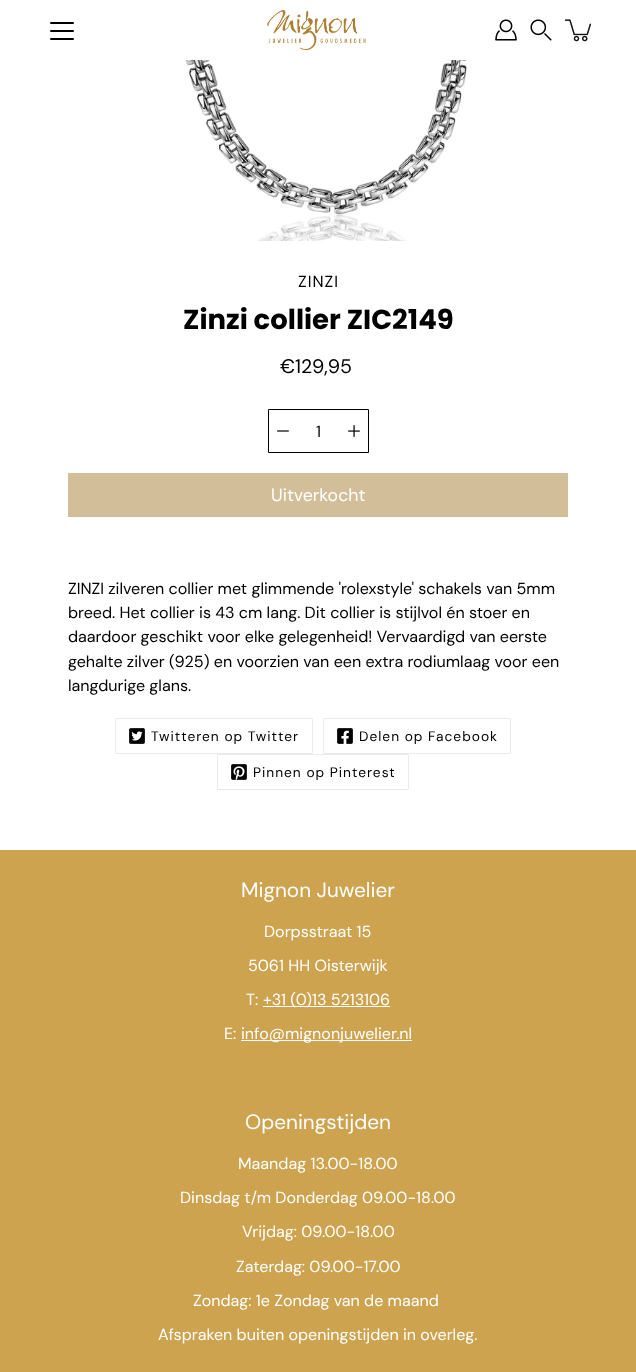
<svg xmlns="http://www.w3.org/2000/svg" width="636" height="1372" viewBox="0 0 636 1372">
  <rect width="100%" height="100%" fill="#fff"/>
  <image x="267" y="10" width="99" height="40" href="img/1.png"/>
  <rect x="50" y="30" width="24" height="2" rx="1" fill="#000"/>
  <rect x="50" y="22" width="24" height="2" rx="1" fill="#000"/>
  <rect x="50" y="38" width="24" height="2" rx="1" fill="#000"/>
  <image x="495" y="19" width="22" height="22" href="img/2.png"/>
  <image x="530" y="19" width="22" height="22" href="img/3.png"/>
  <image x="565" y="19" width="26" height="23" href="img/4.png"/>
  <image x="170" y="60" width="309" height="181" href="img/5.png"/>
  <path d="M268.5 409.5h100v43H268.5z" fill="none" stroke="#000"/>
  <image x="277" y="430" width="12" height="2" href="img/6.png"/>
  <image x="348" y="425" width="12" height="12" href="img/7.png"/>
  <path d="M68 473h500v44H68z" fill="#d2bf99"/>
  <path d="M115.5 718.5h197v35H115.5z" fill="none" stroke="#ebebeb"/>
  <image x="129" y="728" width="16" height="16" href="img/8.png"/>
  <path d="M323.5 718.5h187v35H323.5z" fill="none" stroke="#ebebeb"/>
  <image x="337" y="728" width="16" height="16" href="img/9.png"/>
  <path d="M217.5 754.5h191v35H217.5z" fill="none" stroke="#ebebeb"/>
  <image x="231" y="764" width="16" height="16" href="img/10.png"/>
  <path d="M0 850h636v522H0z" fill="#cda34f"/>
  <path d="M263 1006h127v1H263z" fill="#fff"/>
  <path d="M241 1040h171v1H241z" fill="#fff"/>
  <text x="298" y="287" font-family="DM Sans" font-size="16.1" letter-spacing="1" fill="#000">ZINZI</text>
  <text x="183" y="329" font-family="Poppins" font-size="27.5" font-weight="bold" fill="#000">Zinzi collier ZIC2149</text>
  <text x="280" y="373" font-family="'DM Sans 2'" font-size="19.5" fill="#000">€129,95</text>
  <text x="316" y="437" font-family="'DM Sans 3'" font-size="16" fill="#000">1</text>
  <text x="271" y="501" font-family="'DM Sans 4'" font-size="17.75" fill="#fff">Uitverkocht</text>
  <g font-family="DM Sans" font-size="16.1" fill="#000">
    <text x="68" y="594">ZINZI zilveren collier met glimmende 'rolexstyle' schakels van 5mm</text>
    <text x="68" y="618">breed. Het collier is 43 cm lang. Dit collier is stijlvol én stoer en</text>
    <text x="68" y="642">daardoor geschikt voor elke gelegenheid! Vervaardigd van eerste</text>
    <text x="68" y="667">gehalte zilver (925) en voorzien van een extra rodiumlaag voor een</text>
    <text x="68" y="691">langdurige glans.</text>
  </g>
  <g font-family="'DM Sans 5'" font-size="13.75" letter-spacing="1" fill="#000">
    <text x="151" y="741">Twitteren op Twitter</text>
    <text x="359" y="741">Delen op Facebook</text>
    <text x="253" y="777">Pinnen op Pinterest</text>
  </g>
  <text x="241" y="897" font-family="'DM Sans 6'" font-size="20.75" fill="#fff">Mignon Juwelier</text>
  <g font-family="DM Sans" font-size="16.1" fill="#fff">
    <text x="264" y="937">Dorpsstraat 15</text>
    <text x="248" y="971">5061 HH Oisterwijk</text>
    <text x="246" y="1005">T:</text>
    <text x="263" y="1005">+31 (0)13 5213106</text>
    <text x="224" y="1039">E:</text>
    <text x="241" y="1039">info@mignonjuwelier.nl</text>
  </g>
  <text x="245" y="1129" font-family="'DM Sans 6'" font-size="20.75" fill="#fff">Openingstijden</text>
  <g font-family="DM Sans" font-size="16.1" fill="#fff">
    <text x="238" y="1169">Maandag 13.00-18.00</text>
    <text x="180" y="1203">Dinsdag t/m Donderdag 09.00-18.00</text>
    <text x="242" y="1237">Vrijdag: 09.00-18.00</text>
    <text x="236" y="1272">Zaterdag: 09.00-17.00</text>
    <text x="193" y="1306">Zondag: 1e Zondag van de maand</text>
    <text x="158" y="1340">Afspraken buiten openingstijden in overleg.</text>
  </g>
</svg>
